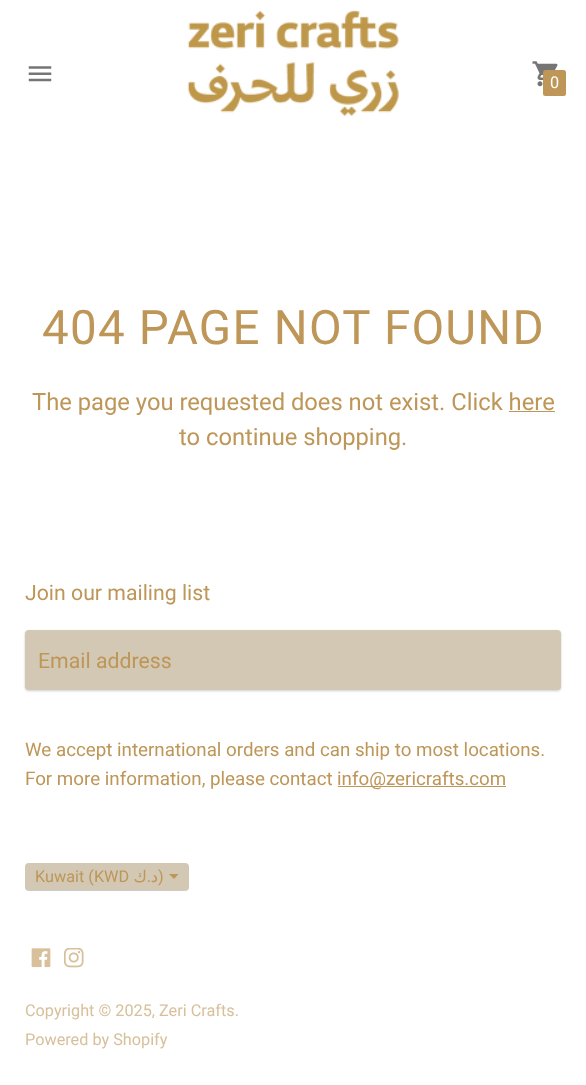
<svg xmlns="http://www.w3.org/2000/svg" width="586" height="1085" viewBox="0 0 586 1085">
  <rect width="100%" height="100%" fill="#fff"/>
  <image x="28" y="66" width="24" height="16" href="img/1.png"/>
  <image x="187" y="10" width="212" height="107" href="img/2.png"/>
  <image x="532" y="61" width="26" height="26" href="img/3.png"/>
  <rect x="543" y="70" width="23" height="26" rx="2.5" fill="#bd9658"/>
  <path d="M509 411h46v1H509z" fill="#bd9658"/>
  <rect x="25" y="631" width="536" height="60" rx="4" fill="#00000033" filter="blur(1px)"/>
  <rect x="25" y="630" width="536" height="60" rx="4" fill="#d3c8b4"/>
  <path d="M338 786h168v1H338z" fill="#bd9658"/>
  <rect x="25" y="864" width="164" height="27" rx="4" fill="#00000033" filter="blur(0.5px)"/>
  <rect x="25" y="863" width="164" height="27" rx="4" fill="#d3c8b4"/>
  <path d="M174 879L178.5 874H169Z" fill="#bd9658"/>
  <image x="31" y="948" width="20" height="20" href="img/4.png"/>
  <image x="64" y="948" width="20" height="20" href="img/5.png"/>
  <text x="550" y="88" font-family="Roboto" font-size="16.25" fill="#fff">0</text>
  <text x="42" y="344" font-family="Roboto" font-size="47.5" letter-spacing="1.25" fill="#bd9658">404 PAGE NOT FOUND</text>
  <g font-family="Roboto" font-size="23.75" fill="#bd9658">
    <text x="32" y="410">The page you requested does not exist. Click here</text>
    <text x="179" y="445">to continue shopping.</text>
  </g>
  <g font-family="Roboto" font-size="21.25" fill="#bd9658">
    <text x="25" y="600">Join our mailing list</text>
    <text x="38" y="668">Email address</text>
  </g>
  <g font-family="Roboto" font-size="18.75" fill="#bd9658">
    <text x="25" y="756">We accept international orders and can ship to most locations.</text>
    <text x="25" y="785">For more information, please contact</text>
    <text x="337" y="785">info@zericrafts.com</text>
  </g>
  <text x="35" y="882" font-family="Roboto" font-size="16.25" fill="#bd9658">Kuwait (KWD</text>
  <text x="147" y="882" font-family="DejaVu Sans" font-size="16.25" direction="rtl" fill="#bd9658">ك</text>
  <text x="151" y="882" font-family="Roboto" font-size="16.25" direction="rtl" fill="#bd9658">.</text>
  <text x="158" y="882" font-family="DejaVu Sans" font-size="16.25" direction="rtl" fill="#bd9658">د</text>
  <text x="158" y="882" font-family="Roboto" font-size="16.25" fill="#bd9658">)</text>
  <g font-family="Roboto" font-size="16.25" fill="#d7c09b">
    <text x="25" y="1016">Copyright © 2025, Zeri Crafts.</text>
    <text x="25" y="1045">Powered by Shopify</text>
  </g>
</svg>
